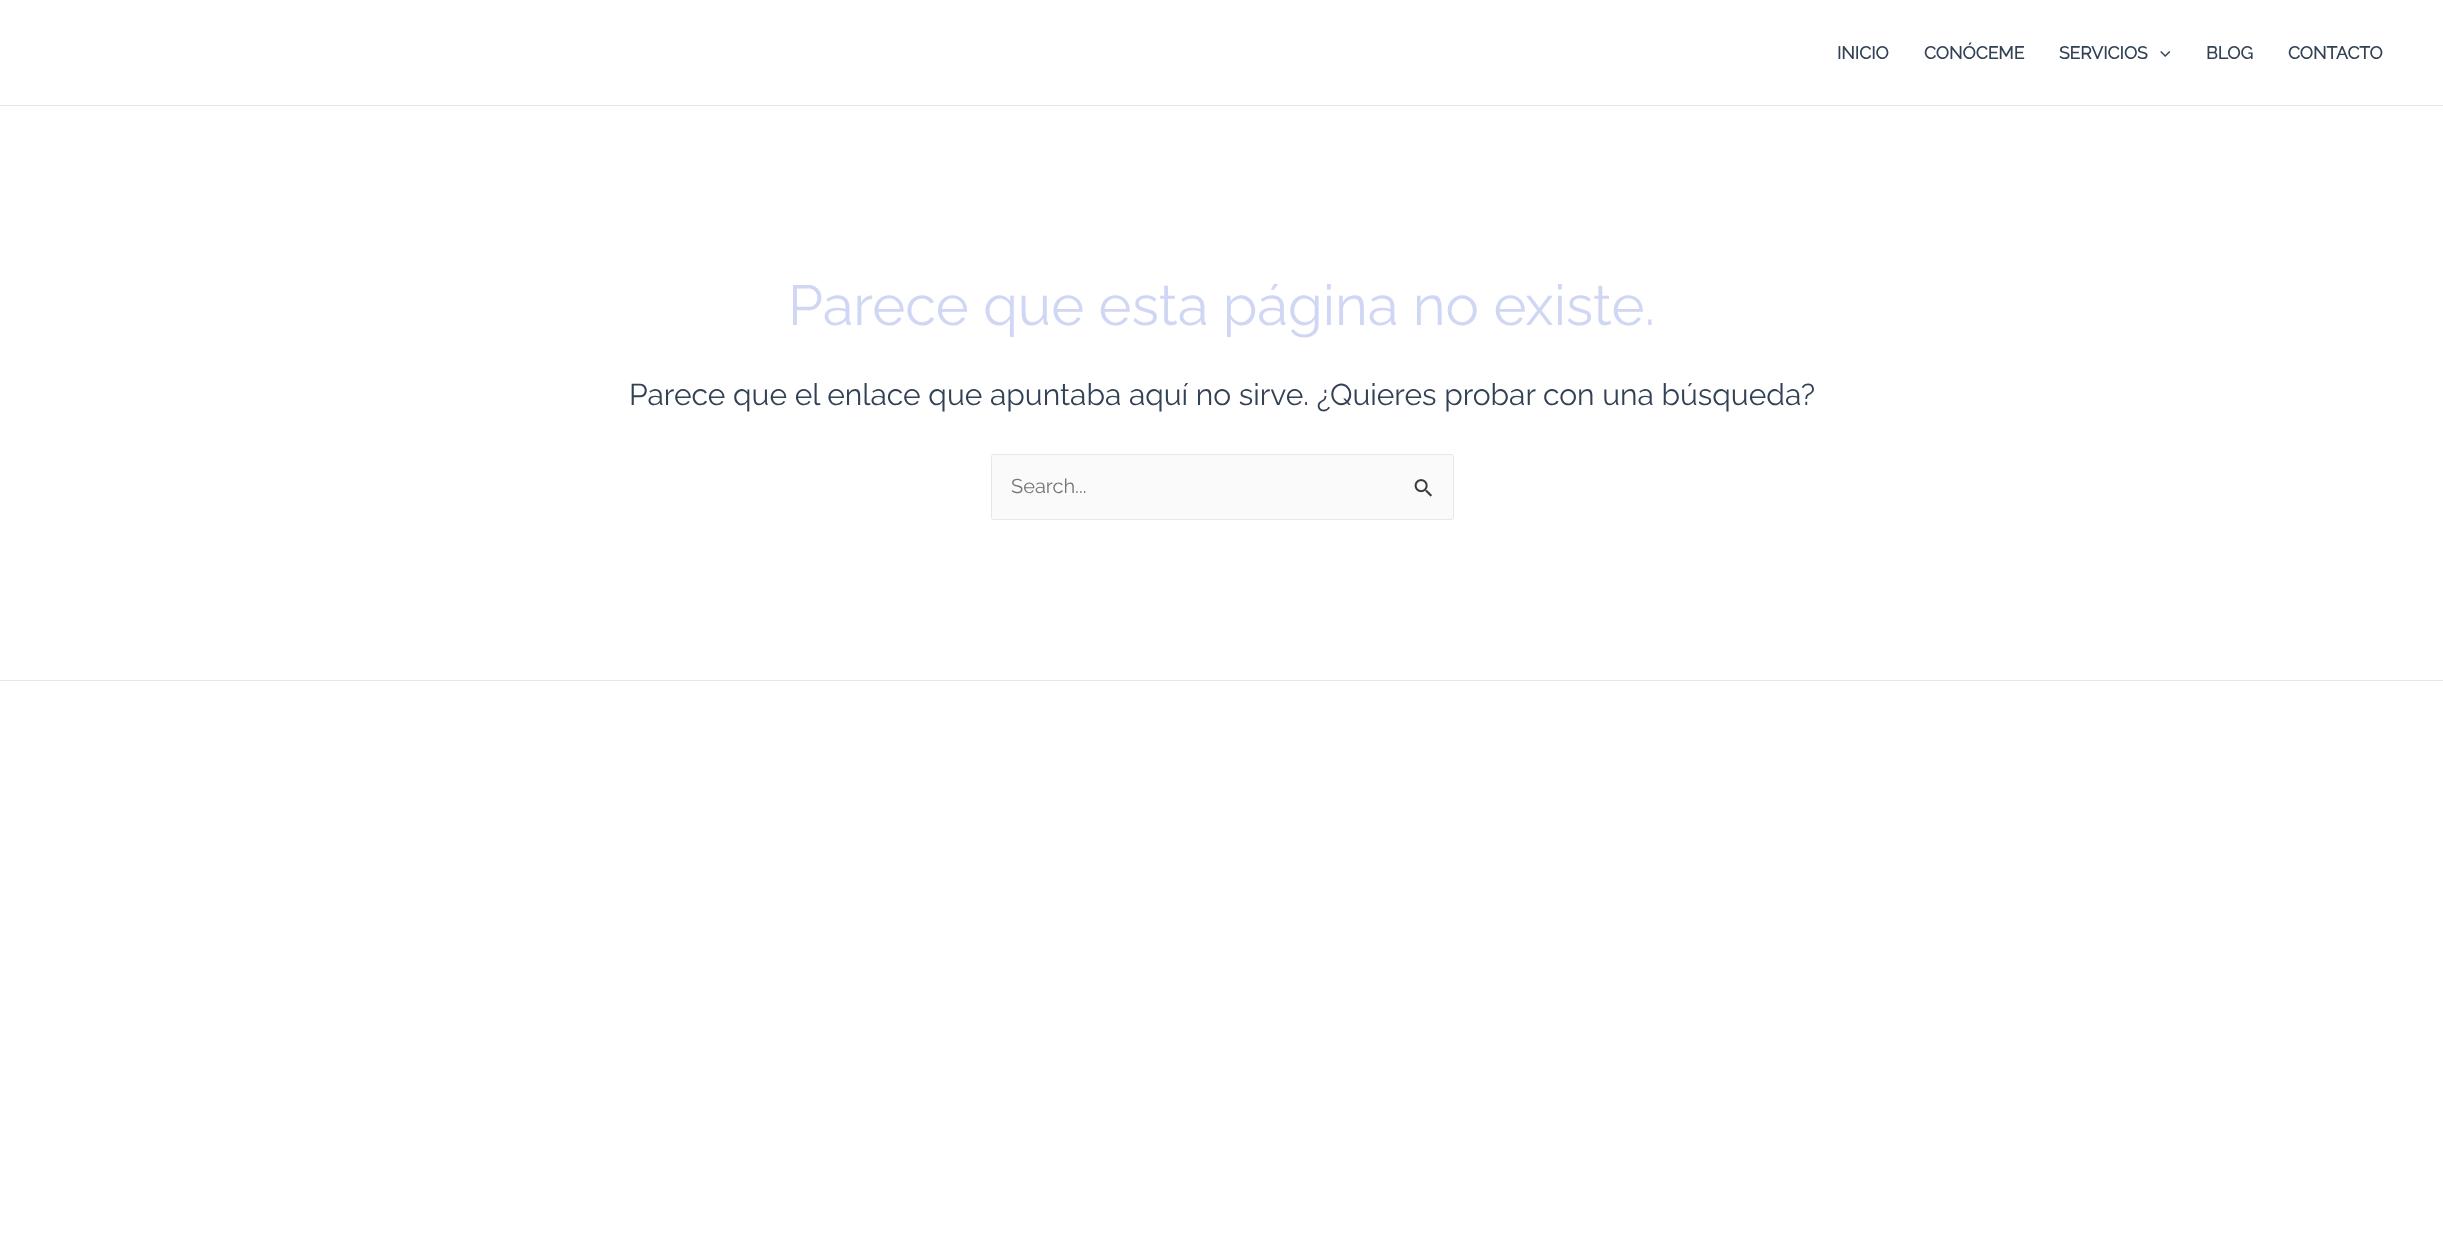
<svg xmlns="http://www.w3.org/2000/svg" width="2443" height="1238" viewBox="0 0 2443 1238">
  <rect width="100%" height="100%" fill="#fff"/>
  <path d="M0 105h2443v1H0z" fill="#e2e8f0"/>
  <image x="2160" y="51" width="11" height="6" href="img/1.png"/>
  <rect x="991.5" y="454.5" width="462" height="65" rx="2" fill="#fafafa" stroke="#e2e8f0"/>
  <image x="1414" y="479" width="18" height="18" href="img/2.png"/>
  <path d="M0 680h2443v1H0z" fill="#e2e8f0"/>
  <g font-family="Raleway" font-size="17.5" font-weight="bold" fill="#334155">
    <text x="1837" y="59">INICIO</text>
    <text x="1924" y="59">CONÓCEME</text>
    <text x="2059" y="59">SERVICIOS</text>
    <text x="2206" y="59">BLOG</text>
    <text x="2288" y="59">CONTACTO</text>
  </g>
  <text x="788" y="325" font-family="Raleway" font-size="56.25" font-weight="100" fill="#d0d7f5">Parece que esta página no existe.</text>
  <text x="629" y="405" font-family="Raleway" font-size="30" font-weight="100" fill="#334155">Parece que el enlace que apuntaba aquí no sirve. ¿Quieres probar con una búsqueda?</text>
  <text x="1011" y="493" font-family="Raleway" font-size="20" font-weight="100" fill="#757575">Search...</text>
</svg>
